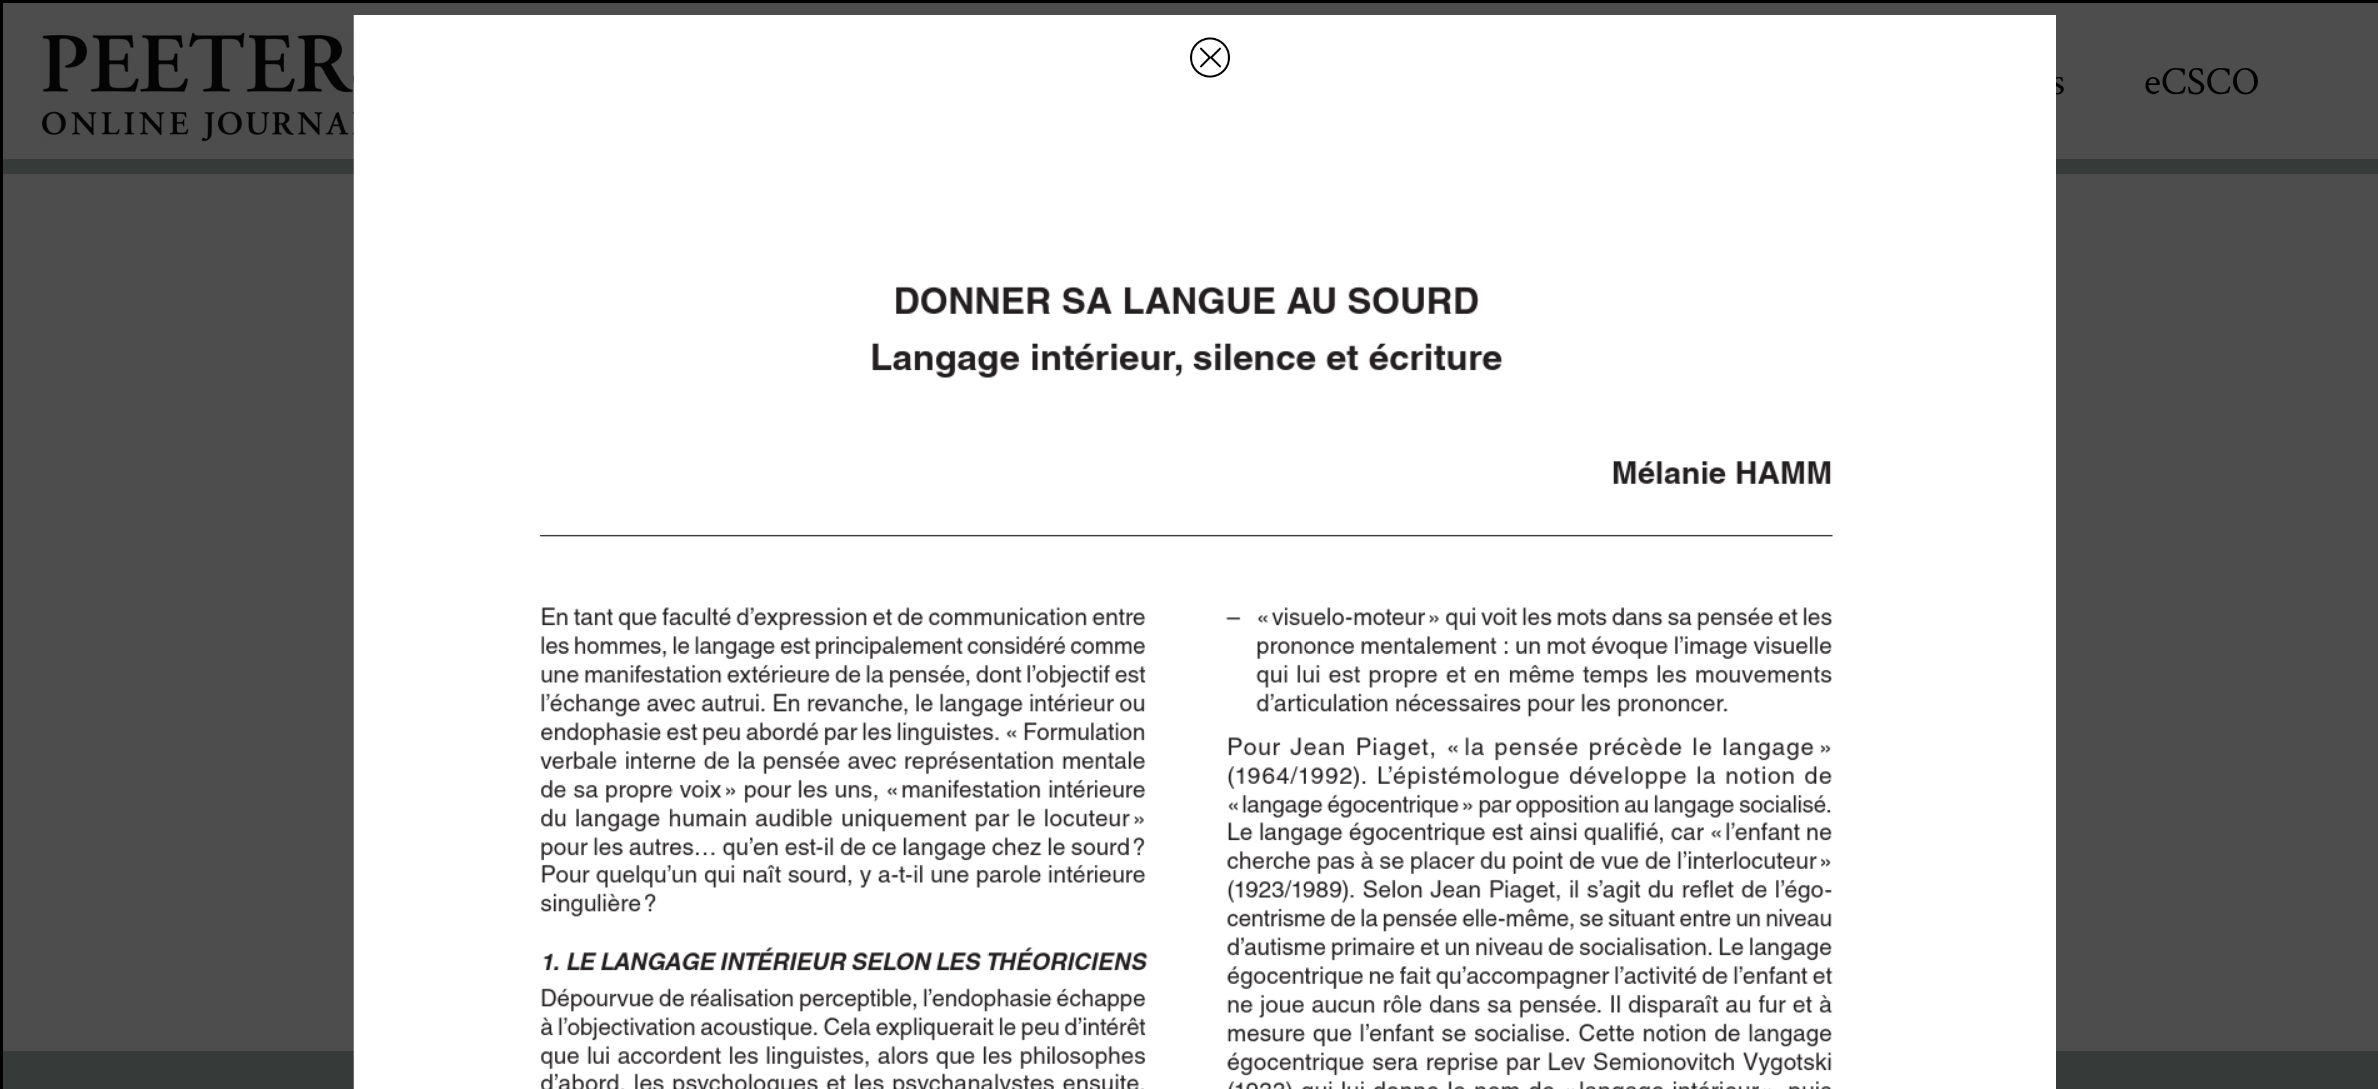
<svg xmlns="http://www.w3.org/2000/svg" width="2378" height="1089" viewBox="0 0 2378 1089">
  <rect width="100%" height="100%" fill="#4d4d4d"/>
  <image x="41" y="32" width="313" height="110" href="img/3.png"/>
  <path d="M3 159h2375v15H3z" fill="#363a38"/>
  <path d="M3 1051h2375v38H3z" fill="#363a38"/>
  <path d="M1.5 1.5h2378v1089H1.5z" fill="none" stroke="#000" stroke-width="3"/>
  <text x="2051" y="94" font-family="Crimson Text" font-size="40" fill="#000">s</text>
  <image x="353" y="15" width="1703" height="1074" href="img/1.png"/>
  <image x="1190" y="37" width="40" height="41" href="img/2.png"/>
  <text x="2144" y="94" font-family="Crimson Text" font-size="40" fill="#000">eCSCO</text>
</svg>
